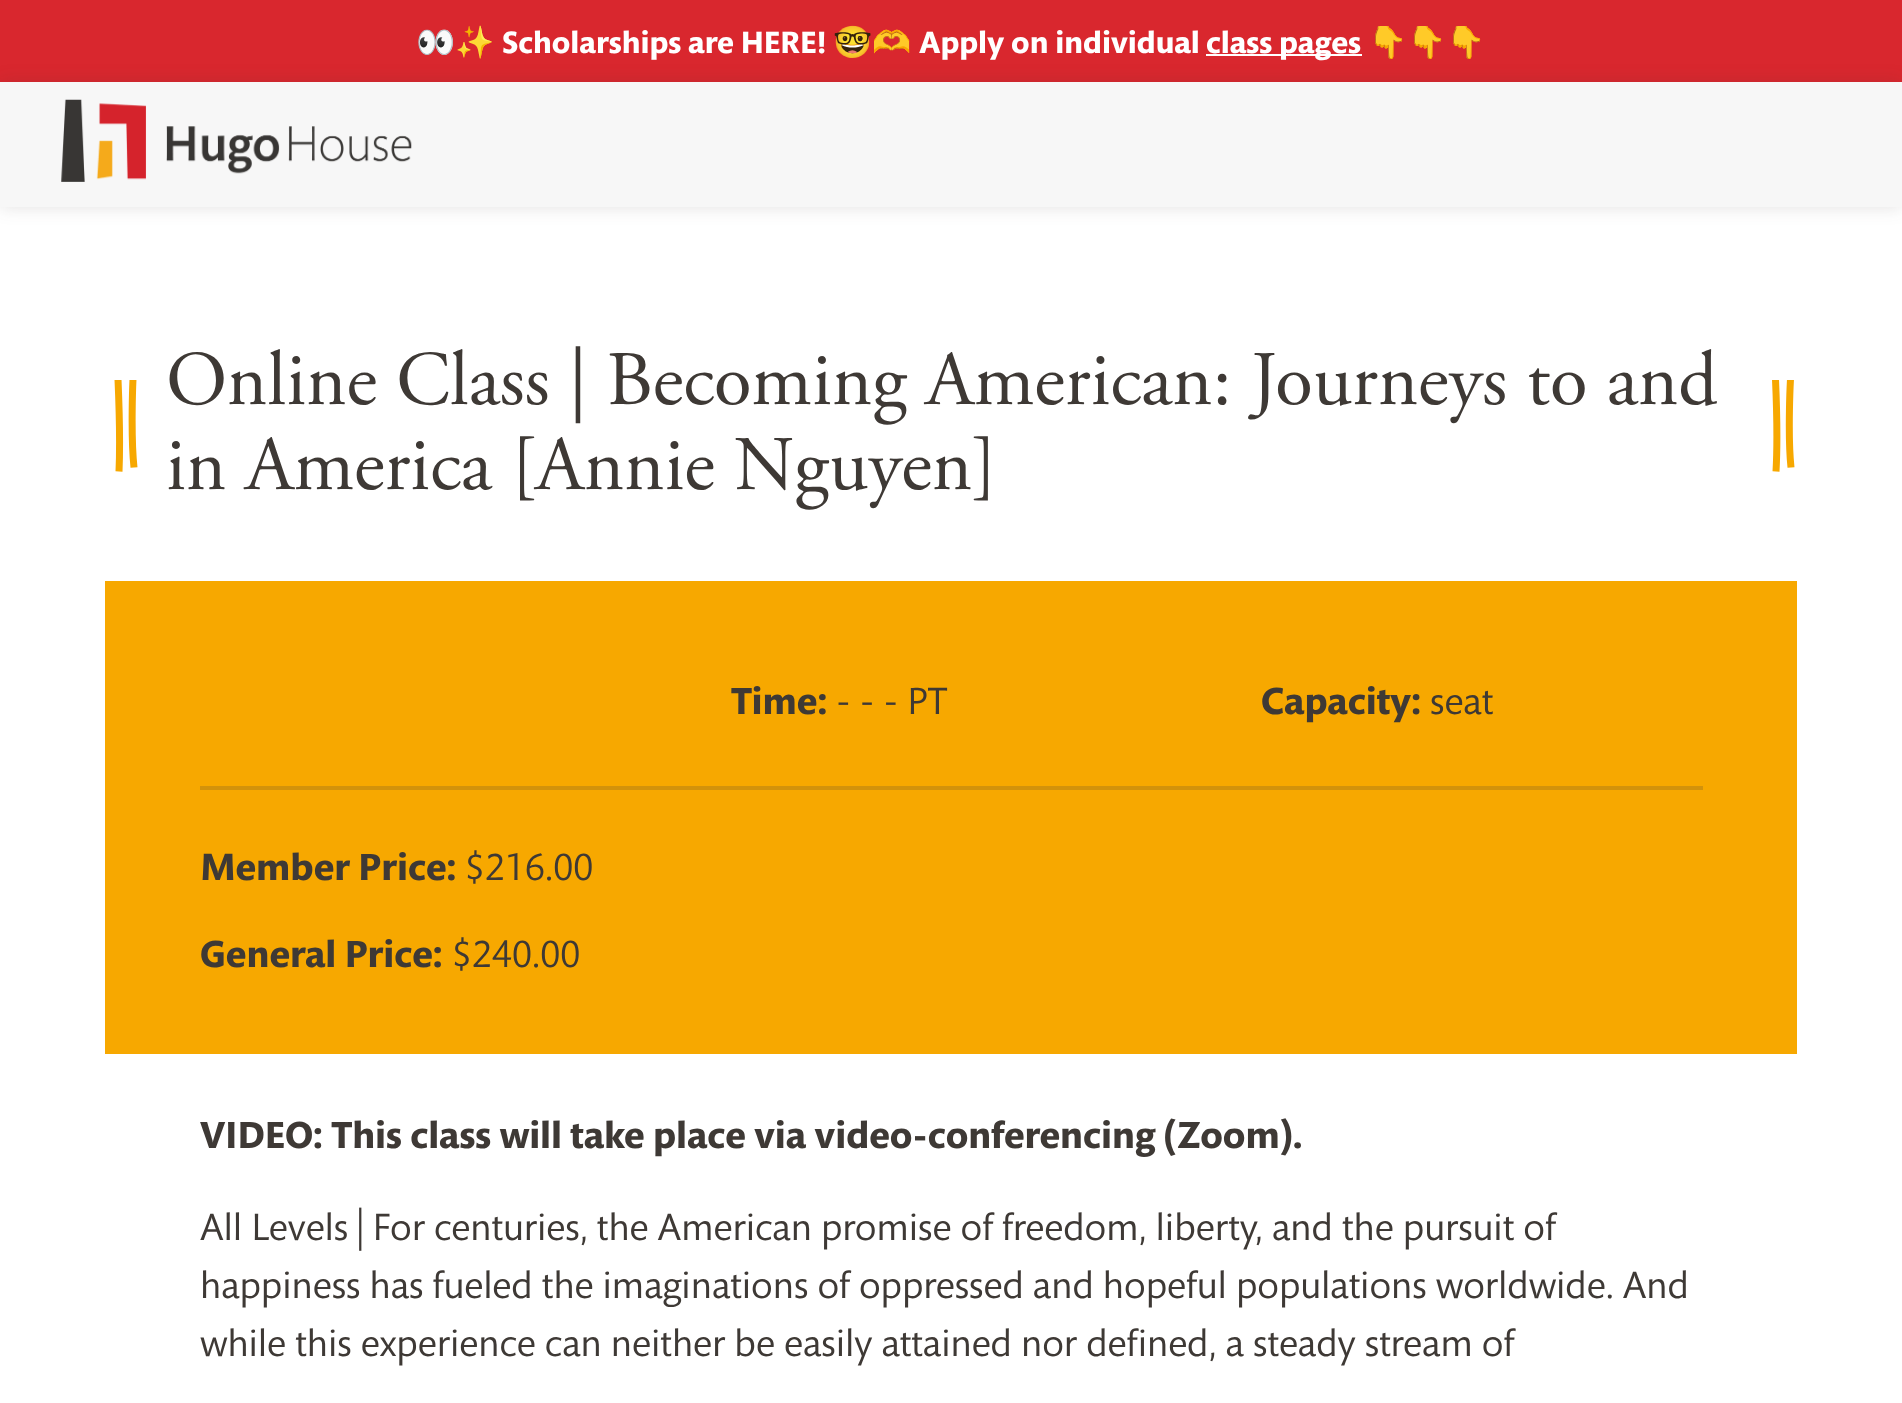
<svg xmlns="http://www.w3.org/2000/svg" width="1902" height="1403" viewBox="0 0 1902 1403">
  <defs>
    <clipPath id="clip1"><path d="M114 380h24v93H114z"/></clipPath>
    <clipPath id="clip2"><path d="M1771 380h25v93H1771z"/></clipPath>
  </defs>
  <rect width="100%" height="100%" fill="#fff"/>
  <path d="M0 0h1902v82H0z" fill="#d9272e"/>
  <path d="M1206 54h156v2H1206z" fill="#fff"/>
  <path d="M0 82h1902v125H0z" fill="#3e393526" filter="blur(9px)"/>
  <path d="M0 82h1902v125H0z" fill="#f7f7f7"/>
  <image x="61" y="99" width="351" height="83" href="img/1.png"/>
  <g clip-path="url(#clip1)">
    <path d="M134 467.5C130.5 433.5 133 379 133 379" fill="none" stroke="#f7a800" stroke-width="7"/>
    <path d="M118 379.5C118 379.5 120.5 437 119 471.5" fill="none" stroke="#f7a800" stroke-width="7"/>
  </g>
  <g clip-path="url(#clip2)">
    <path d="M1791 467.5C1787.5 433.5 1790.5 379 1790.5 379" fill="none" stroke="#f7a800" stroke-width="7"/>
    <path d="M1775.5 379.5C1775.5 379.5 1778 437 1776 471.5" fill="none" stroke="#f7a800" stroke-width="7"/>
  </g>
  <path d="M105 581h1692v473H105z" fill="#f7a800"/>
  <path d="M200 786h1503v4H200z" fill="#d2920b"/>
  <text x="416" y="53" font-family="Noto Color Emoji" font-size="31.5" fill="#fff">👀✨</text>
  <text x="502" y="53" font-family="'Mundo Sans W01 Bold'" font-size="31.5" font-weight="bold" fill="#fff">Scholarships are HERE!</text>
  <text x="833" y="53" font-family="Noto Color Emoji" font-size="31.5" fill="#fff">🤓🫶</text>
  <g font-family="'Mundo Sans W01 Bold'" font-size="31.5" font-weight="bold" fill="#fff">
    <text x="919" y="53">Apply on individual</text>
    <text x="1206" y="53">class pages</text>
  </g>
  <text x="1368" y="53" font-family="Noto Color Emoji" font-size="31.5" fill="#fff">👇👇👇</text>
  <g font-family="Adobe Garamond" font-size="77" fill="#3e3935">
    <text x="166" y="404">Online Class | Becoming American: Journeys to and</text>
    <text x="166" y="489">in America [Annie Nguyen]</text>
  </g>
  <text x="731" y="714" font-family="'Mundo Sans W01 Bold'" font-size="38.5" font-weight="bold" fill="#3e3935">Time:</text>
  <text x="836" y="714" font-family="'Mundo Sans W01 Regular'" font-size="38.5" fill="#3e3935">- - - PT</text>
  <text x="1261" y="714" font-family="'Mundo Sans W01 Bold'" font-size="38.5" font-weight="bold" fill="#3e3935">Capacity:</text>
  <text x="1430" y="714" font-family="'Mundo Sans W01 Regular'" font-size="38.5" fill="#3e3935">seat</text>
  <text x="200" y="880" font-family="'Mundo Sans W01 Bold'" font-size="38.5" font-weight="bold" fill="#3e3935">Member Price:</text>
  <text x="465" y="880" font-family="'Mundo Sans W01 Regular'" font-size="38.5" fill="#3e3935">$216.00</text>
  <text x="200" y="967" font-family="'Mundo Sans W01 Bold'" font-size="38.5" font-weight="bold" fill="#3e3935">General Price:</text>
  <text x="452" y="967" font-family="'Mundo Sans W01 Regular'" font-size="38.5" fill="#3e3935">$240.00</text>
  <text x="200" y="1148" font-family="'Mundo Sans W01 Bold'" font-size="38.5" font-weight="bold" fill="#3e3935">VIDEO: This class will take place via video-conferencing (Zoom).</text>
  <g font-family="'Mundo Sans W01 Regular'" font-size="38.5" fill="#3e3935">
    <text x="200" y="1240">All Levels | For centuries, the American promise of freedom, liberty, and the pursuit of</text>
    <text x="200" y="1298">happiness has fueled the imaginations of oppressed and hopeful populations worldwide. And</text>
    <text x="200" y="1356">while this experience can neither be easily attained nor defined, a steady stream of</text>
  </g>
</svg>
